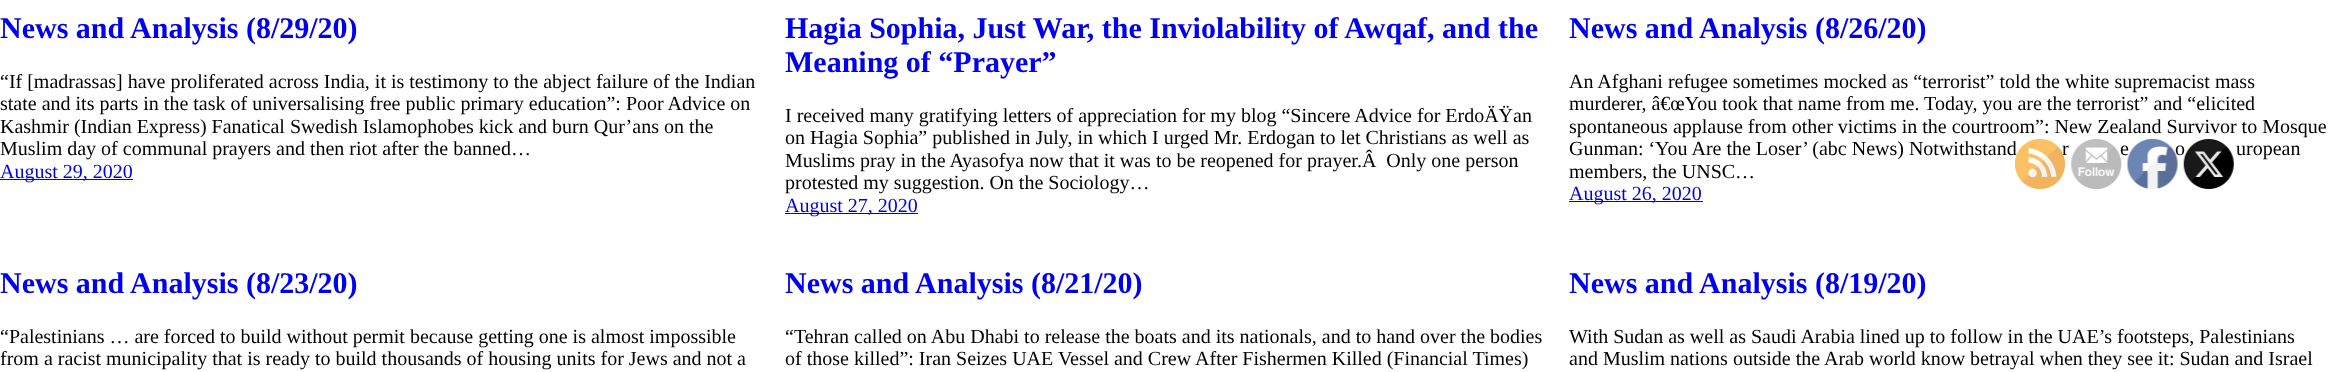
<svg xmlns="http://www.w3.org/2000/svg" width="2328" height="372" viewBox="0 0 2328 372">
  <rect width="100%" height="100%" fill="#fff"/>
  <path d="M0 179h133v1H0z" fill="#00e"/>
  <path d="M785 213h133v1H785z" fill="#00e"/>
  <path d="M1569 201h134v1H1569z" fill="#00e"/>
  <text x="0" y="38" font-family="Liberation Serif" font-size="30" font-weight="bold" fill="#00e">News and Analysis (8/29/20)</text>
  <g font-family="Liberation Serif" font-size="20" fill="#000">
    <text x="0" y="88">“If [madrassas] have proliferated across India, it is testimony to the abject failure of the Indian</text>
    <text x="0" y="110">state and its parts in the task of universalising free public primary education”: Poor Advice on</text>
    <text x="0" y="133">Kashmir (Indian Express) Fanatical Swedish Islamophobes kick and burn Qur’ans on the</text>
    <text x="0" y="155">Muslim day of communal prayers and then riot after the banned…</text>
  </g>
  <text x="0" y="178" font-family="Liberation Serif" font-size="20" fill="#00e">August 29, 2020</text>
  <g font-family="Liberation Serif" font-size="30" font-weight="bold" fill="#00e">
    <text x="785" y="38">Hagia Sophia, Just War, the Inviolability of Awqaf, and the</text>
    <text x="785" y="72">Meaning of “Prayer”</text>
  </g>
  <g font-family="Liberation Serif" font-size="20" fill="#000">
    <text x="785" y="122">I received many gratifying letters of appreciation for my blog “Sincere Advice for ErdoÄŸan</text>
    <text x="785" y="144">on Hagia Sophia” published in July, in which I urged Mr. Erdogan to let Christians as well as</text>
    <text x="785" y="167" xml:space="preserve">Muslims pray in the Ayasofya now that it was to be reopened for prayer.Â  Only one person</text>
    <text x="785" y="189">protested my suggestion. On the Sociology…</text>
  </g>
  <text x="785" y="212" font-family="Liberation Serif" font-size="20" fill="#00e">August 27, 2020</text>
  <text x="1569" y="38" font-family="Liberation Serif" font-size="30" font-weight="bold" fill="#00e">News and Analysis (8/26/20)</text>
  <g font-family="Liberation Serif" font-size="20" fill="#000">
    <text x="1569" y="88">An Afghani refugee sometimes mocked as “terrorist” told the white supremacist mass</text>
    <text x="1569" y="110">murderer, â€œYou took that name from me. Today, you are the terrorist” and “elicited</text>
    <text x="1569" y="133">spontaneous applause from other victims in the courtroom”: New Zealand Survivor to Mosque</text>
    <text x="1569" y="155">Gunman: ‘You Are the Loser’ (abc News) Notwithstand</text>
    <text x="2062" y="155">r</text>
    <text x="2120" y="155">e</text>
    <text x="2175" y="155">o</text>
    <text x="2236" y="155">uropean</text>
    <text x="1569" y="178">members, the UNSC…</text>
  </g>
  <text x="1569" y="200" font-family="Liberation Serif" font-size="20" fill="#00e">August 26, 2020</text>
  <text x="0" y="293" font-family="Liberation Serif" font-size="30" font-weight="bold" fill="#00e">News and Analysis (8/23/20)</text>
  <g font-family="Liberation Serif" font-size="20" fill="#000">
    <text x="0" y="343">“Palestinians … are forced to build without permit because getting one is almost impossible</text>
    <text x="0" y="365">from a racist municipality that is ready to build thousands of housing units for Jews and not a</text>
  </g>
  <text x="785" y="293" font-family="Liberation Serif" font-size="30" font-weight="bold" fill="#00e">News and Analysis (8/21/20)</text>
  <g font-family="Liberation Serif" font-size="20" fill="#000">
    <text x="785" y="343">“Tehran called on Abu Dhabi to release the boats and its nationals, and to hand over the bodies</text>
    <text x="785" y="365">of those killed”: Iran Seizes UAE Vessel and Crew After Fishermen Killed (Financial Times)</text>
  </g>
  <text x="1569" y="293" font-family="Liberation Serif" font-size="30" font-weight="bold" fill="#00e">News and Analysis (8/19/20)</text>
  <g font-family="Liberation Serif" font-size="20" fill="#000">
    <text x="1569" y="343">With Sudan as well as Saudi Arabia lined up to follow in the UAE’s footsteps, Palestinians</text>
    <text x="1569" y="365">and Muslim nations outside the Arab world know betrayal when they see it: Sudan and Israel</text>
  </g>
  <image x="2015" y="139" width="50" height="50" href="img/1.png"/>
  <image x="2071" y="139" width="51" height="50" href="img/2.png"/>
  <image x="2127" y="139" width="51" height="50" href="img/3.png"/>
  <image x="2183" y="139" width="51" height="50" href="img/4.png"/>
</svg>
